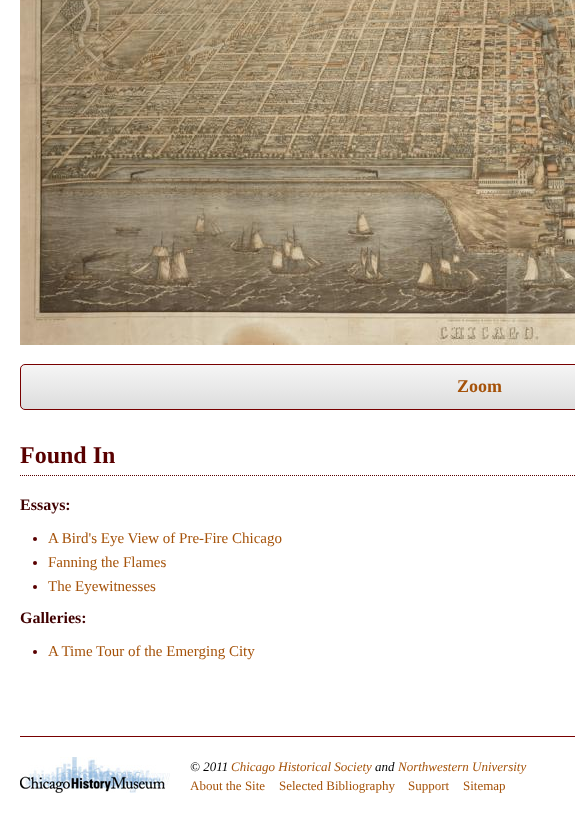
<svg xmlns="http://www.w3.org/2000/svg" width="575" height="823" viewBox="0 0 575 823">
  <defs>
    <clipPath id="clip1"><rect x="20" y="364" width="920" height="46" rx="5"/></clipPath>
    <linearGradient id="g1" gradientUnits="userSpaceOnUse" x1="480" y1="365" x2="480" y2="409"><stop offset="0" stop-color="#f5f5f5"/><stop offset="1" stop-color="#ddd"/></linearGradient>
  </defs>
  <rect width="100%" height="100%" fill="#fff"/>
  <image x="20" y="0" width="555" height="345" href="img/1.png"/>
  <g clip-path="url(#clip1)">
    <path d="M20 365h555v44H20z" fill="url(#g1)"/>
  </g>
  <rect x="20.5" y="364.5" width="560" height="45" rx="4.5" fill="none" stroke="#780000"/>
  <path d="M20 475.5H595" fill="none" stroke="#590000" stroke-dasharray="1 1"/>
  <circle cx="35" cy="539" r="2" fill="#590000"/>
  <circle cx="35" cy="563" r="2" fill="#590000"/>
  <circle cx="35" cy="587" r="2" fill="#590000"/>
  <circle cx="35" cy="652" r="2" fill="#590000"/>
  <path d="M20 736h555v1H20z" fill="#780000"/>
  <image x="20" y="757" width="150" height="36" href="img/2.png"/>
  <text x="457" y="392" font-family="Liberation Serif" font-size="18" font-weight="bold" fill="#a55209">Zoom</text>
  <text x="20" y="463" font-family="Liberation Serif" font-size="24" font-weight="bold" fill="#590000">Found In</text>
  <text x="20" y="510" font-family="Liberation Serif" font-size="16" font-weight="bold" fill="#400000">Essays:</text>
  <g font-family="Liberation Serif" font-size="15" fill="#a55209">
    <text x="48" y="543">A Bird's Eye View of Pre-Fire Chicago</text>
    <text x="48" y="567">Fanning the Flames</text>
    <text x="48" y="591">The Eyewitnesses</text>
  </g>
  <text x="20" y="623" font-family="Liberation Serif" font-size="16" font-weight="bold" fill="#400000">Galleries:</text>
  <text x="48" y="656" font-family="Liberation Serif" font-size="15" fill="#a55209">A Time Tour of the Emerging City</text>
  <text x="190" y="771" font-family="Liberation Serif" font-size="13" font-style="italic" fill="#000">© 2011</text>
  <text x="231" y="771" font-family="Liberation Serif" font-size="13" font-style="italic" fill="#a55209">Chicago Historical Society</text>
  <text x="375" y="771" font-family="Liberation Serif" font-size="13" font-style="italic" fill="#000">and</text>
  <text x="398" y="771" font-family="Liberation Serif" font-size="13" font-style="italic" fill="#a55209">Northwestern University</text>
  <g font-family="Liberation Serif" font-size="13" fill="#a55209">
    <text x="190" y="790">About the Site</text>
    <text x="279" y="790">Selected Bibliography</text>
    <text x="408" y="790">Support</text>
    <text x="463" y="790">Sitemap</text>
  </g>
</svg>
